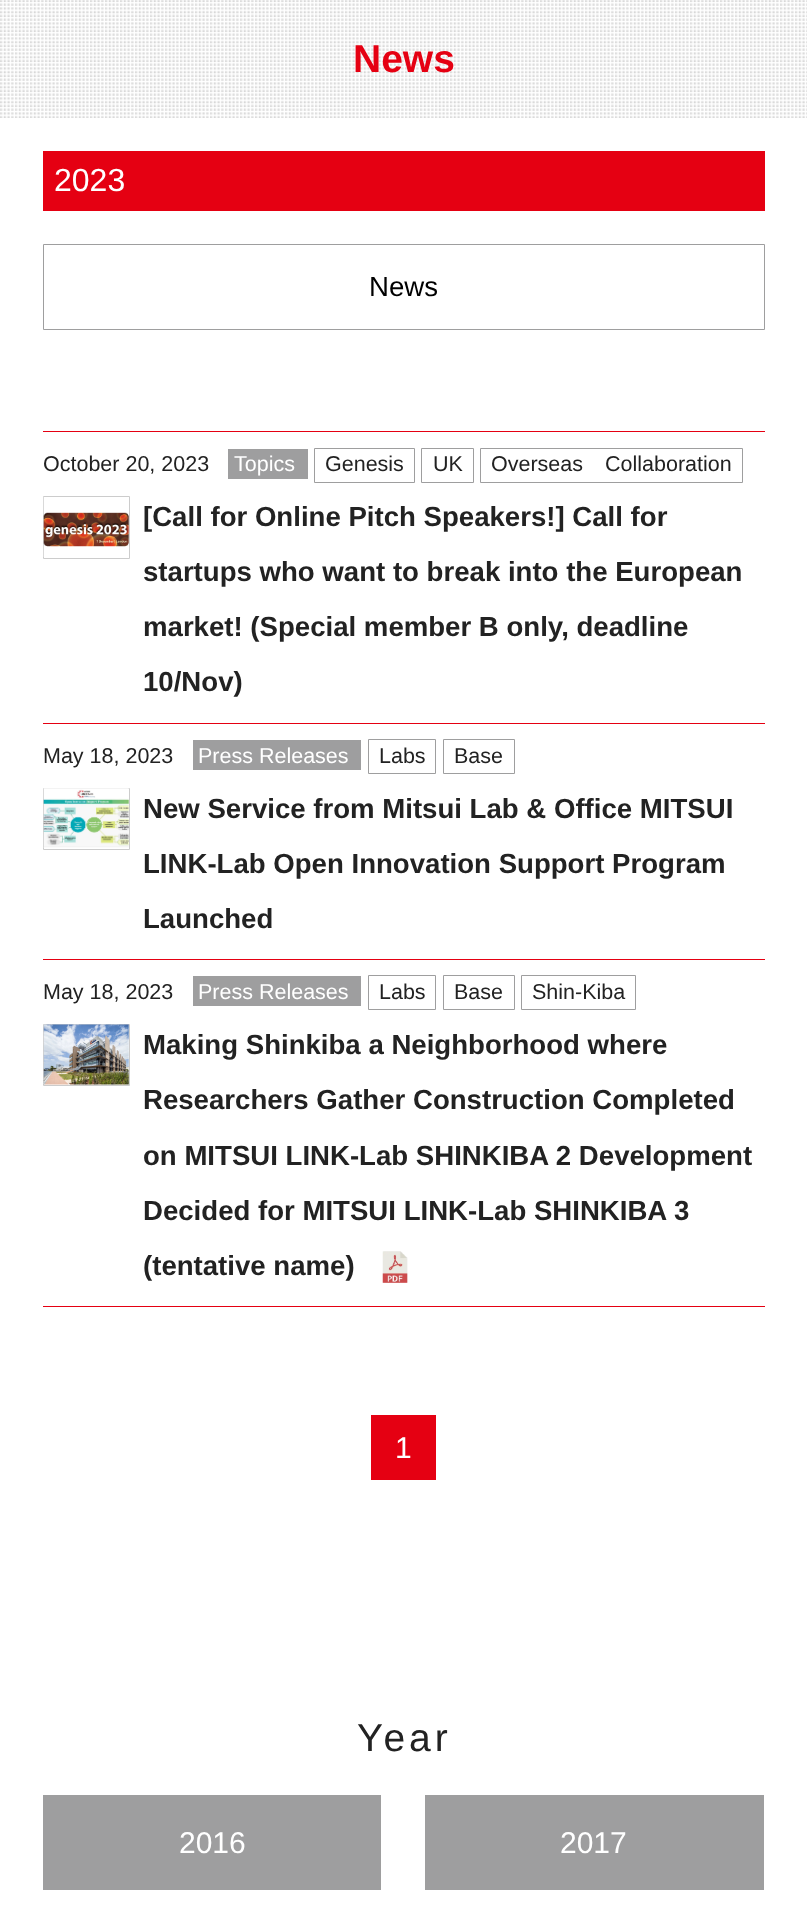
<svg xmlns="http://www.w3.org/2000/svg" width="807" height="1914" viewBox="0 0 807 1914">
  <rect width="100%" height="100%" fill="#fff"/>
  <image x="0" y="0" width="807" height="118" href="img/1.png"/>
  <path d="M43 151h722v60H43z" fill="#e50012"/>
  <path d="M43.5 244.5h721v85H43.5z" fill="none" stroke="#9e9e9f"/>
  <path d="M43 431h722v1H43z" fill="#e50012"/>
  <path d="M228 449h80v30H228z" fill="#9e9e9f"/>
  <path d="M314.5 448.5h100v34H314.5z" fill="none" stroke="#9e9e9f"/>
  <path d="M421.5 448.5h52v34H421.5z" fill="none" stroke="#9e9e9f"/>
  <path d="M480.5 448.5h262v34H480.5z" fill="none" stroke="#9e9e9f"/>
  <path d="M43.5 496.5h86v62H43.5z" fill="none" stroke="#ccc"/>
  <image x="43" y="497" width="86" height="60" href="img/2.png"/>
  <path d="M43 723h722v1H43z" fill="#e50012"/>
  <path d="M193 740h168v30H193z" fill="#9e9e9f"/>
  <path d="M368.5 739.5h67v34H368.5z" fill="none" stroke="#9e9e9f"/>
  <path d="M443.5 739.5h71v34H443.5z" fill="none" stroke="#9e9e9f"/>
  <path d="M43.5 788.5h86v61H43.5z" fill="none" stroke="#ccc"/>
  <image x="43" y="788" width="86" height="60" href="img/3.png"/>
  <path d="M43 959h722v1H43z" fill="#e50012"/>
  <path d="M43 1306h722v1H43z" fill="#e50012"/>
  <path d="M193 976h168v30H193z" fill="#9e9e9f"/>
  <path d="M368.5 975.5h67v34H368.5z" fill="none" stroke="#9e9e9f"/>
  <path d="M443.5 975.5h71v34H443.5z" fill="none" stroke="#9e9e9f"/>
  <path d="M521.5 975.5h114v34H521.5z" fill="none" stroke="#9e9e9f"/>
  <path d="M43.5 1024.5h86v61H43.5z" fill="none" stroke="#ccc"/>
  <image x="43" y="1024" width="86" height="61" href="img/4.png"/>
  <image x="382" y="1251" width="26" height="32" href="img/5.png"/>
  <path d="M371 1415h65v65H371z" fill="#e50012"/>
  <path d="M43 1795h338v95H43z" fill="#9e9e9f"/>
  <path d="M425 1795h339v95H425z" fill="#9e9e9f"/>
  <text x="353" y="72" font-family="Liberation Sans" font-size="39" font-weight="bold" fill="#e50012">News</text>
  <text x="54" y="191" font-family="Liberation Sans" font-size="32" fill="#fff">2023</text>
  <text x="369" y="296" font-family="Liberation Sans" font-size="27.6" fill="#000">News</text>
  <text x="43" y="471" font-family="Liberation Sans" font-size="21.5" fill="#222">October 20, 2023</text>
  <text x="234" y="471" font-family="Liberation Sans" font-size="21.5" fill="#fff">Topics</text>
  <g font-family="Liberation Sans" font-size="21.5" fill="#222">
    <text x="325" y="471">Genesis</text>
    <text x="433" y="471">UK</text>
    <text x="491" y="471">Overseas</text>
    <text x="605" y="471">Collaboration</text>
  </g>
  <g font-family="Liberation Sans" font-size="27.6" font-weight="bold" fill="#222">
    <text x="143" y="526">[Call for Online Pitch Speakers!] Call for</text>
    <text x="143" y="581">startups who want to break into the European</text>
    <text x="143" y="636">market! (Special member B only, deadline</text>
    <text x="143" y="691">10/Nov)</text>
  </g>
  <text x="43" y="763" font-family="Liberation Sans" font-size="21.5" fill="#222">May 18, 2023</text>
  <text x="198" y="763" font-family="Liberation Sans" font-size="21.5" fill="#fff">Press Releases</text>
  <g font-family="Liberation Sans" font-size="21.5" fill="#222">
    <text x="379" y="763">Labs</text>
    <text x="454" y="763">Base</text>
  </g>
  <g font-family="Liberation Sans" font-size="27.6" font-weight="bold" fill="#222">
    <text x="143" y="818">New Service from Mitsui Lab &amp; Office MITSUI</text>
    <text x="143" y="873">LINK-Lab Open Innovation Support Program</text>
    <text x="143" y="928">Launched</text>
  </g>
  <text x="43" y="999" font-family="Liberation Sans" font-size="21.5" fill="#222">May 18, 2023</text>
  <text x="198" y="999" font-family="Liberation Sans" font-size="21.5" fill="#fff">Press Releases</text>
  <g font-family="Liberation Sans" font-size="21.5" fill="#222">
    <text x="379" y="999">Labs</text>
    <text x="454" y="999">Base</text>
    <text x="532" y="999">Shin-Kiba</text>
  </g>
  <g font-family="Liberation Sans" font-size="27.6" font-weight="bold" fill="#222">
    <text x="143" y="1054">Making Shinkiba a Neighborhood where</text>
    <text x="143" y="1109">Researchers Gather Construction Completed</text>
    <text x="143" y="1165">on MITSUI LINK-Lab SHINKIBA 2 Development</text>
    <text x="143" y="1220">Decided for MITSUI LINK-Lab SHINKIBA 3</text>
    <text x="143" y="1275">(tentative name)</text>
  </g>
  <text x="395" y="1458" font-family="Liberation Sans" font-size="30" fill="#fff">1</text>
  <text x="357" y="1751" font-family="Liberation Sans" font-size="39" letter-spacing="4" fill="#222">Year</text>
  <g font-family="Liberation Sans" font-size="30" fill="#fff">
    <text x="179" y="1853">2016</text>
    <text x="560" y="1853">2017</text>
  </g>
</svg>
